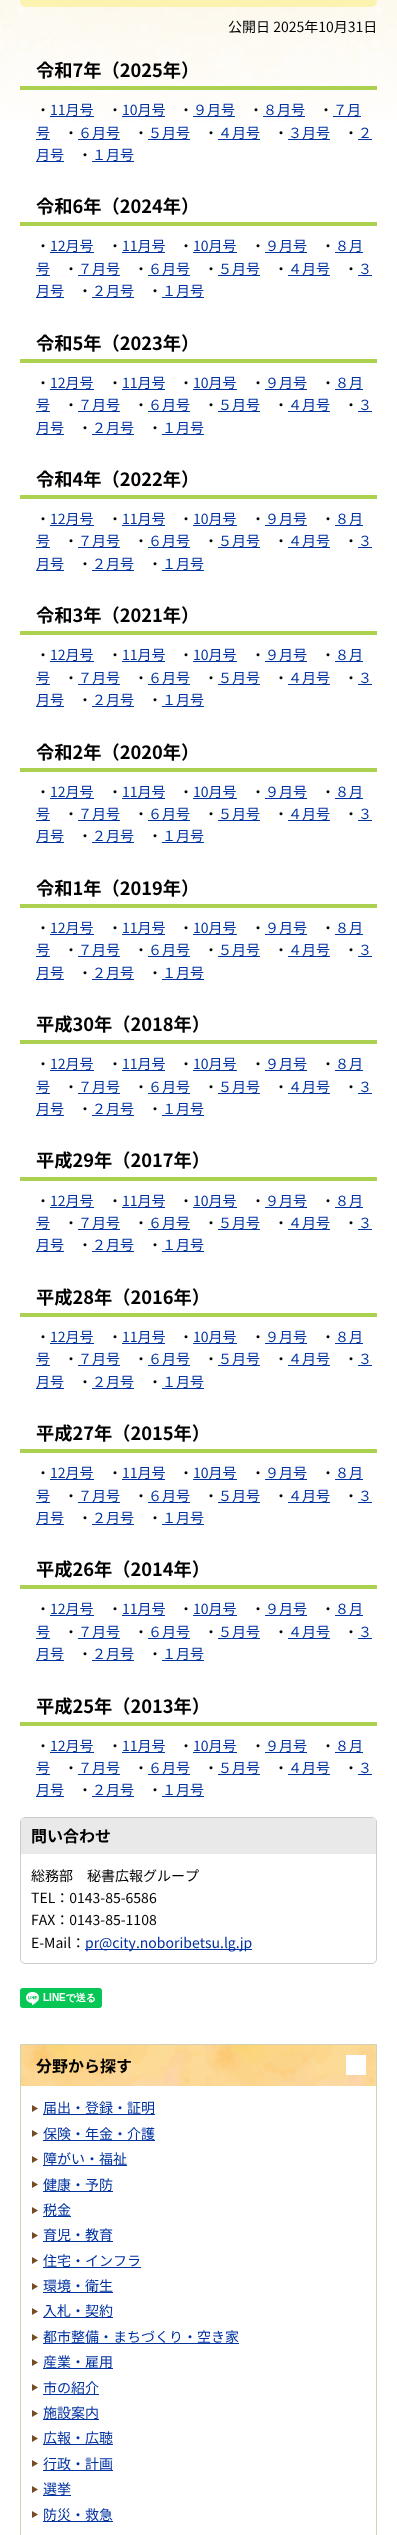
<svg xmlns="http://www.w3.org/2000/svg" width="397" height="2535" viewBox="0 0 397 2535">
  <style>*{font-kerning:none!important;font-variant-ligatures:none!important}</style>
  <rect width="100%" height="100%" fill="#fff"/>
  <image x="0" y="0" width="397" height="122" href="img/1.png"/>
  <rect x="20" y="-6" width="357" height="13" rx="6" fill="#fdf3b1"/>
  <path d="M20 86h357v4H20z" fill="#acd151"/>
  <path d="M50 116h44v1H50z" fill="#0032a0"/>
  <path d="M122 116h43v1H122z" fill="#0032a0"/>
  <path d="M193 116h42v1H193z" fill="#0032a0"/>
  <path d="M263 116h42v1H263z" fill="#0032a0"/>
  <path d="M333 116h28v1H333z" fill="#0032a0"/>
  <path d="M36 139h14v1H36z" fill="#0032a0"/>
  <path d="M78 139h42v1H78z" fill="#0032a0"/>
  <path d="M148 139h42v1H148z" fill="#0032a0"/>
  <path d="M218 139h42v1H218z" fill="#0032a0"/>
  <path d="M288 139h42v1H288z" fill="#0032a0"/>
  <path d="M358 139h14v1H358z" fill="#0032a0"/>
  <path d="M36 161h28v1H36z" fill="#0032a0"/>
  <path d="M92 161h42v1H92z" fill="#0032a0"/>
  <path d="M20 222h357v4H20z" fill="#acd151"/>
  <path d="M50 252h44v1H50z" fill="#0032a0"/>
  <path d="M122 252h43v1H122z" fill="#0032a0"/>
  <path d="M193 252h44v1H193z" fill="#0032a0"/>
  <path d="M265 252h42v1H265z" fill="#0032a0"/>
  <path d="M335 252h28v1H335z" fill="#0032a0"/>
  <path d="M36 275h14v1H36z" fill="#0032a0"/>
  <path d="M78 275h42v1H78z" fill="#0032a0"/>
  <path d="M148 275h42v1H148z" fill="#0032a0"/>
  <path d="M218 275h42v1H218z" fill="#0032a0"/>
  <path d="M288 275h42v1H288z" fill="#0032a0"/>
  <path d="M358 275h14v1H358z" fill="#0032a0"/>
  <path d="M36 297h28v1H36z" fill="#0032a0"/>
  <path d="M92 297h42v1H92z" fill="#0032a0"/>
  <path d="M162 297h42v1H162z" fill="#0032a0"/>
  <path d="M20 359h357v4H20z" fill="#acd151"/>
  <path d="M50 389h44v1H50z" fill="#0032a0"/>
  <path d="M122 389h43v1H122z" fill="#0032a0"/>
  <path d="M193 389h44v1H193z" fill="#0032a0"/>
  <path d="M265 389h42v1H265z" fill="#0032a0"/>
  <path d="M335 389h28v1H335z" fill="#0032a0"/>
  <path d="M36 411h14v1H36z" fill="#0032a0"/>
  <path d="M78 411h42v1H78z" fill="#0032a0"/>
  <path d="M148 411h42v1H148z" fill="#0032a0"/>
  <path d="M218 411h42v1H218z" fill="#0032a0"/>
  <path d="M288 411h42v1H288z" fill="#0032a0"/>
  <path d="M358 411h14v1H358z" fill="#0032a0"/>
  <path d="M36 434h28v1H36z" fill="#0032a0"/>
  <path d="M92 434h42v1H92z" fill="#0032a0"/>
  <path d="M162 434h42v1H162z" fill="#0032a0"/>
  <path d="M20 495h357v4H20z" fill="#acd151"/>
  <path d="M50 525h44v1H50z" fill="#0032a0"/>
  <path d="M122 525h43v1H122z" fill="#0032a0"/>
  <path d="M193 525h44v1H193z" fill="#0032a0"/>
  <path d="M265 525h42v1H265z" fill="#0032a0"/>
  <path d="M335 525h28v1H335z" fill="#0032a0"/>
  <path d="M36 547h14v1H36z" fill="#0032a0"/>
  <path d="M78 547h42v1H78z" fill="#0032a0"/>
  <path d="M148 547h42v1H148z" fill="#0032a0"/>
  <path d="M218 547h42v1H218z" fill="#0032a0"/>
  <path d="M288 547h42v1H288z" fill="#0032a0"/>
  <path d="M358 547h14v1H358z" fill="#0032a0"/>
  <path d="M36 570h28v1H36z" fill="#0032a0"/>
  <path d="M92 570h42v1H92z" fill="#0032a0"/>
  <path d="M162 570h42v1H162z" fill="#0032a0"/>
  <path d="M20 631h357v4H20z" fill="#acd151"/>
  <path d="M50 661h44v1H50z" fill="#0032a0"/>
  <path d="M122 661h43v1H122z" fill="#0032a0"/>
  <path d="M193 661h44v1H193z" fill="#0032a0"/>
  <path d="M265 661h42v1H265z" fill="#0032a0"/>
  <path d="M335 661h28v1H335z" fill="#0032a0"/>
  <path d="M36 684h14v1H36z" fill="#0032a0"/>
  <path d="M78 684h42v1H78z" fill="#0032a0"/>
  <path d="M148 684h42v1H148z" fill="#0032a0"/>
  <path d="M218 684h42v1H218z" fill="#0032a0"/>
  <path d="M288 684h42v1H288z" fill="#0032a0"/>
  <path d="M358 684h14v1H358z" fill="#0032a0"/>
  <path d="M36 706h28v1H36z" fill="#0032a0"/>
  <path d="M92 706h42v1H92z" fill="#0032a0"/>
  <path d="M162 706h42v1H162z" fill="#0032a0"/>
  <path d="M20 768h357v4H20z" fill="#acd151"/>
  <path d="M50 798h44v1H50z" fill="#0032a0"/>
  <path d="M122 798h43v1H122z" fill="#0032a0"/>
  <path d="M193 798h44v1H193z" fill="#0032a0"/>
  <path d="M265 798h42v1H265z" fill="#0032a0"/>
  <path d="M335 798h28v1H335z" fill="#0032a0"/>
  <path d="M36 820h14v1H36z" fill="#0032a0"/>
  <path d="M78 820h42v1H78z" fill="#0032a0"/>
  <path d="M148 820h42v1H148z" fill="#0032a0"/>
  <path d="M218 820h42v1H218z" fill="#0032a0"/>
  <path d="M288 820h42v1H288z" fill="#0032a0"/>
  <path d="M358 820h14v1H358z" fill="#0032a0"/>
  <path d="M36 842h28v1H36z" fill="#0032a0"/>
  <path d="M92 842h42v1H92z" fill="#0032a0"/>
  <path d="M162 842h42v1H162z" fill="#0032a0"/>
  <path d="M20 904h357v4H20z" fill="#acd151"/>
  <path d="M50 934h44v1H50z" fill="#0032a0"/>
  <path d="M122 934h43v1H122z" fill="#0032a0"/>
  <path d="M193 934h44v1H193z" fill="#0032a0"/>
  <path d="M265 934h42v1H265z" fill="#0032a0"/>
  <path d="M335 934h28v1H335z" fill="#0032a0"/>
  <path d="M36 956h14v1H36z" fill="#0032a0"/>
  <path d="M78 956h42v1H78z" fill="#0032a0"/>
  <path d="M148 956h42v1H148z" fill="#0032a0"/>
  <path d="M218 956h42v1H218z" fill="#0032a0"/>
  <path d="M288 956h42v1H288z" fill="#0032a0"/>
  <path d="M358 956h14v1H358z" fill="#0032a0"/>
  <path d="M36 979h28v1H36z" fill="#0032a0"/>
  <path d="M92 979h42v1H92z" fill="#0032a0"/>
  <path d="M162 979h42v1H162z" fill="#0032a0"/>
  <path d="M20 1040h357v4H20z" fill="#acd151"/>
  <path d="M50 1070h44v1H50z" fill="#0032a0"/>
  <path d="M122 1070h43v1H122z" fill="#0032a0"/>
  <path d="M193 1070h44v1H193z" fill="#0032a0"/>
  <path d="M265 1070h42v1H265z" fill="#0032a0"/>
  <path d="M335 1070h28v1H335z" fill="#0032a0"/>
  <path d="M36 1093h14v1H36z" fill="#0032a0"/>
  <path d="M78 1093h42v1H78z" fill="#0032a0"/>
  <path d="M148 1093h42v1H148z" fill="#0032a0"/>
  <path d="M218 1093h42v1H218z" fill="#0032a0"/>
  <path d="M288 1093h42v1H288z" fill="#0032a0"/>
  <path d="M358 1093h14v1H358z" fill="#0032a0"/>
  <path d="M36 1115h28v1H36z" fill="#0032a0"/>
  <path d="M92 1115h42v1H92z" fill="#0032a0"/>
  <path d="M162 1115h42v1H162z" fill="#0032a0"/>
  <path d="M20 1177h357v4H20z" fill="#acd151"/>
  <path d="M50 1207h44v1H50z" fill="#0032a0"/>
  <path d="M122 1207h43v1H122z" fill="#0032a0"/>
  <path d="M193 1207h44v1H193z" fill="#0032a0"/>
  <path d="M265 1207h42v1H265z" fill="#0032a0"/>
  <path d="M335 1207h28v1H335z" fill="#0032a0"/>
  <path d="M36 1229h14v1H36z" fill="#0032a0"/>
  <path d="M78 1229h42v1H78z" fill="#0032a0"/>
  <path d="M148 1229h42v1H148z" fill="#0032a0"/>
  <path d="M218 1229h42v1H218z" fill="#0032a0"/>
  <path d="M288 1229h42v1H288z" fill="#0032a0"/>
  <path d="M358 1229h14v1H358z" fill="#0032a0"/>
  <path d="M36 1251h28v1H36z" fill="#0032a0"/>
  <path d="M92 1251h42v1H92z" fill="#0032a0"/>
  <path d="M162 1251h42v1H162z" fill="#0032a0"/>
  <path d="M20 1313h357v4H20z" fill="#acd151"/>
  <path d="M50 1343h44v1H50z" fill="#0032a0"/>
  <path d="M122 1343h43v1H122z" fill="#0032a0"/>
  <path d="M193 1343h44v1H193z" fill="#0032a0"/>
  <path d="M265 1343h42v1H265z" fill="#0032a0"/>
  <path d="M335 1343h28v1H335z" fill="#0032a0"/>
  <path d="M36 1365h14v1H36z" fill="#0032a0"/>
  <path d="M78 1365h42v1H78z" fill="#0032a0"/>
  <path d="M148 1365h42v1H148z" fill="#0032a0"/>
  <path d="M218 1365h42v1H218z" fill="#0032a0"/>
  <path d="M288 1365h42v1H288z" fill="#0032a0"/>
  <path d="M358 1365h14v1H358z" fill="#0032a0"/>
  <path d="M36 1388h28v1H36z" fill="#0032a0"/>
  <path d="M92 1388h42v1H92z" fill="#0032a0"/>
  <path d="M162 1388h42v1H162z" fill="#0032a0"/>
  <path d="M20 1449h357v4H20z" fill="#acd151"/>
  <path d="M50 1479h44v1H50z" fill="#0032a0"/>
  <path d="M122 1479h43v1H122z" fill="#0032a0"/>
  <path d="M193 1479h44v1H193z" fill="#0032a0"/>
  <path d="M265 1479h42v1H265z" fill="#0032a0"/>
  <path d="M335 1479h28v1H335z" fill="#0032a0"/>
  <path d="M36 1502h14v1H36z" fill="#0032a0"/>
  <path d="M78 1502h42v1H78z" fill="#0032a0"/>
  <path d="M148 1502h42v1H148z" fill="#0032a0"/>
  <path d="M218 1502h42v1H218z" fill="#0032a0"/>
  <path d="M288 1502h42v1H288z" fill="#0032a0"/>
  <path d="M358 1502h14v1H358z" fill="#0032a0"/>
  <path d="M36 1524h28v1H36z" fill="#0032a0"/>
  <path d="M92 1524h42v1H92z" fill="#0032a0"/>
  <path d="M162 1524h42v1H162z" fill="#0032a0"/>
  <path d="M20 1585h357v4H20z" fill="#acd151"/>
  <path d="M50 1615h44v1H50z" fill="#0032a0"/>
  <path d="M122 1615h43v1H122z" fill="#0032a0"/>
  <path d="M193 1615h44v1H193z" fill="#0032a0"/>
  <path d="M265 1615h42v1H265z" fill="#0032a0"/>
  <path d="M335 1615h28v1H335z" fill="#0032a0"/>
  <path d="M36 1638h14v1H36z" fill="#0032a0"/>
  <path d="M78 1638h42v1H78z" fill="#0032a0"/>
  <path d="M148 1638h42v1H148z" fill="#0032a0"/>
  <path d="M218 1638h42v1H218z" fill="#0032a0"/>
  <path d="M288 1638h42v1H288z" fill="#0032a0"/>
  <path d="M358 1638h14v1H358z" fill="#0032a0"/>
  <path d="M36 1660h28v1H36z" fill="#0032a0"/>
  <path d="M92 1660h42v1H92z" fill="#0032a0"/>
  <path d="M162 1660h42v1H162z" fill="#0032a0"/>
  <path d="M20 1722h357v4H20z" fill="#acd151"/>
  <path d="M50 1752h44v1H50z" fill="#0032a0"/>
  <path d="M122 1752h43v1H122z" fill="#0032a0"/>
  <path d="M193 1752h44v1H193z" fill="#0032a0"/>
  <path d="M265 1752h42v1H265z" fill="#0032a0"/>
  <path d="M335 1752h28v1H335z" fill="#0032a0"/>
  <path d="M36 1774h14v1H36z" fill="#0032a0"/>
  <path d="M78 1774h42v1H78z" fill="#0032a0"/>
  <path d="M148 1774h42v1H148z" fill="#0032a0"/>
  <path d="M218 1774h42v1H218z" fill="#0032a0"/>
  <path d="M288 1774h42v1H288z" fill="#0032a0"/>
  <path d="M358 1774h14v1H358z" fill="#0032a0"/>
  <path d="M36 1796h28v1H36z" fill="#0032a0"/>
  <path d="M92 1796h42v1H92z" fill="#0032a0"/>
  <path d="M162 1796h42v1H162z" fill="#0032a0"/>
  <rect x="20.5" y="1817.5" width="356" height="146" rx="4.5" fill="none" stroke="#ccc"/>
  <path d="M21 1818h355v36H21z" fill="#e9e9e9"/>
  <path d="M85 1949h167v1H85z" fill="#0032a0"/>
  <image x="20" y="1988" width="82" height="20" href="img/2.png"/>
  <path d="M20.5 2044.5h356v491H20.5z" fill="none" stroke="#d1d2b3"/>
  <image x="21" y="2045" width="355" height="41" href="img/3.png"/>
  <path d="M346 2055h20v20H346z" fill="#fff"/>
  <path d="M38 2108.5L32 2112V2105ZM38 2133.5L32 2137V2130ZM38 2159.5L32 2163V2156Z" fill="#754c24"/>
  <path d="M43 2114h112v1H43z" fill="#0032a0"/>
  <path d="M43 2140h112v1H43z" fill="#0032a0"/>
  <path d="M43 2165h84v1H43z" fill="#0032a0"/>
  <path d="M38 2184.5L32 2188V2181ZM38 2210.5L32 2214V2207ZM38 2235.5L32 2239V2232Z" fill="#754c24"/>
  <path d="M43 2191h70v1H43z" fill="#0032a0"/>
  <path d="M43 2216h28v1H43z" fill="#0032a0"/>
  <path d="M43 2241h70v1H43z" fill="#0032a0"/>
  <path d="M38 2260.5L32 2264V2257ZM38 2286.5L32 2290V2283ZM38 2311.5L32 2315V2308Z" fill="#754c24"/>
  <path d="M43 2267h98v1H43z" fill="#0032a0"/>
  <path d="M43 2292h70v1H43z" fill="#0032a0"/>
  <path d="M43 2317h70v1H43z" fill="#0032a0"/>
  <path d="M38 2337.5L32 2341V2334ZM38 2362.5L32 2366V2359ZM38 2387.5L32 2391V2384Z" fill="#754c24"/>
  <path d="M43 2343h196v1H43z" fill="#0032a0"/>
  <path d="M43 2368h70v1H43z" fill="#0032a0"/>
  <path d="M43 2394h56v1H43z" fill="#0032a0"/>
  <path d="M38 2413.5L32 2417V2410ZM38 2438.5L32 2442V2435ZM38 2463.5L32 2467V2460Z" fill="#754c24"/>
  <path d="M43 2419h56v1H43z" fill="#0032a0"/>
  <path d="M43 2444h70v1H43z" fill="#0032a0"/>
  <path d="M43 2470h70v1H43z" fill="#0032a0"/>
  <path d="M38 2489.5L32 2493V2486ZM38 2514.5L32 2518V2511Z" fill="#754c24"/>
  <path d="M43 2495h28v1H43z" fill="#0032a0"/>
  <path d="M43 2521h70v1H43z" fill="#0032a0"/>
  <text x="228" y="32" font-family="Noto Sans JP" font-size="14" fill="#000">公開日 2025年10月31日</text>
  <text x="36" y="77" font-family="Noto Sans JP" font-size="18.25" font-weight="bold" fill="#000">令和7年（2025年）</text>
  <text x="36" y="115" font-family="Noto Sans JP" font-size="14" fill="#000">・</text>
  <text x="50" y="115" font-family="Noto Sans JP" font-size="14" fill="#0032a0">11月号</text>
  <text x="108" y="115" font-family="Noto Sans JP" font-size="14" fill="#000">・</text>
  <text x="122" y="115" font-family="Noto Sans JP" font-size="14" fill="#0032a0">10月号</text>
  <text x="179" y="115" font-family="Noto Sans JP" font-size="14" fill="#000">・</text>
  <text x="193" y="115" font-family="Noto Sans JP" font-size="14" fill="#0032a0">９月号</text>
  <text x="249" y="115" font-family="Noto Sans JP" font-size="14" fill="#000">・</text>
  <text x="263" y="115" font-family="Noto Sans JP" font-size="14" fill="#0032a0">８月号</text>
  <text x="319" y="115" font-family="Noto Sans JP" font-size="14" fill="#000">・</text>
  <g font-family="Noto Sans JP" font-size="14" fill="#0032a0">
    <text x="333" y="115">７月</text>
    <text x="36" y="138">号</text>
  </g>
  <text x="64" y="138" font-family="Noto Sans JP" font-size="14" fill="#000">・</text>
  <text x="78" y="138" font-family="Noto Sans JP" font-size="14" fill="#0032a0">６月号</text>
  <text x="134" y="138" font-family="Noto Sans JP" font-size="14" fill="#000">・</text>
  <text x="148" y="138" font-family="Noto Sans JP" font-size="14" fill="#0032a0">５月号</text>
  <text x="204" y="138" font-family="Noto Sans JP" font-size="14" fill="#000">・</text>
  <text x="218" y="138" font-family="Noto Sans JP" font-size="14" fill="#0032a0">４月号</text>
  <text x="274" y="138" font-family="Noto Sans JP" font-size="14" fill="#000">・</text>
  <text x="288" y="138" font-family="Noto Sans JP" font-size="14" fill="#0032a0">３月号</text>
  <text x="344" y="138" font-family="Noto Sans JP" font-size="14" fill="#000">・</text>
  <g font-family="Noto Sans JP" font-size="14" fill="#0032a0">
    <text x="358" y="138">２</text>
    <text x="36" y="160">月号</text>
  </g>
  <text x="78" y="160" font-family="Noto Sans JP" font-size="14" fill="#000">・</text>
  <text x="92" y="160" font-family="Noto Sans JP" font-size="14" fill="#0032a0">１月号</text>
  <text x="36" y="213" font-family="Noto Sans JP" font-size="18.25" font-weight="bold" fill="#000">令和6年（2024年）</text>
  <text x="36" y="251" font-family="Noto Sans JP" font-size="14" fill="#000">・</text>
  <text x="50" y="251" font-family="Noto Sans JP" font-size="14" fill="#0032a0">12月号</text>
  <text x="108" y="251" font-family="Noto Sans JP" font-size="14" fill="#000">・</text>
  <text x="122" y="251" font-family="Noto Sans JP" font-size="14" fill="#0032a0">11月号</text>
  <text x="179" y="251" font-family="Noto Sans JP" font-size="14" fill="#000">・</text>
  <text x="193" y="251" font-family="Noto Sans JP" font-size="14" fill="#0032a0">10月号</text>
  <text x="251" y="251" font-family="Noto Sans JP" font-size="14" fill="#000">・</text>
  <text x="265" y="251" font-family="Noto Sans JP" font-size="14" fill="#0032a0">９月号</text>
  <text x="321" y="251" font-family="Noto Sans JP" font-size="14" fill="#000">・</text>
  <g font-family="Noto Sans JP" font-size="14" fill="#0032a0">
    <text x="335" y="251">８月</text>
    <text x="36" y="274">号</text>
  </g>
  <text x="64" y="274" font-family="Noto Sans JP" font-size="14" fill="#000">・</text>
  <text x="78" y="274" font-family="Noto Sans JP" font-size="14" fill="#0032a0">７月号</text>
  <text x="134" y="274" font-family="Noto Sans JP" font-size="14" fill="#000">・</text>
  <text x="148" y="274" font-family="Noto Sans JP" font-size="14" fill="#0032a0">６月号</text>
  <text x="204" y="274" font-family="Noto Sans JP" font-size="14" fill="#000">・</text>
  <text x="218" y="274" font-family="Noto Sans JP" font-size="14" fill="#0032a0">５月号</text>
  <text x="274" y="274" font-family="Noto Sans JP" font-size="14" fill="#000">・</text>
  <text x="288" y="274" font-family="Noto Sans JP" font-size="14" fill="#0032a0">４月号</text>
  <text x="344" y="274" font-family="Noto Sans JP" font-size="14" fill="#000">・</text>
  <g font-family="Noto Sans JP" font-size="14" fill="#0032a0">
    <text x="358" y="274">３</text>
    <text x="36" y="296">月号</text>
  </g>
  <text x="78" y="296" font-family="Noto Sans JP" font-size="14" fill="#000">・</text>
  <text x="92" y="296" font-family="Noto Sans JP" font-size="14" fill="#0032a0">２月号</text>
  <text x="148" y="296" font-family="Noto Sans JP" font-size="14" fill="#000">・</text>
  <text x="162" y="296" font-family="Noto Sans JP" font-size="14" fill="#0032a0">１月号</text>
  <text x="36" y="350" font-family="Noto Sans JP" font-size="18.25" font-weight="bold" fill="#000">令和5年（2023年）</text>
  <text x="36" y="388" font-family="Noto Sans JP" font-size="14" fill="#000">・</text>
  <text x="50" y="388" font-family="Noto Sans JP" font-size="14" fill="#0032a0">12月号</text>
  <text x="108" y="388" font-family="Noto Sans JP" font-size="14" fill="#000">・</text>
  <text x="122" y="388" font-family="Noto Sans JP" font-size="14" fill="#0032a0">11月号</text>
  <text x="179" y="388" font-family="Noto Sans JP" font-size="14" fill="#000">・</text>
  <text x="193" y="388" font-family="Noto Sans JP" font-size="14" fill="#0032a0">10月号</text>
  <text x="251" y="388" font-family="Noto Sans JP" font-size="14" fill="#000">・</text>
  <text x="265" y="388" font-family="Noto Sans JP" font-size="14" fill="#0032a0">９月号</text>
  <text x="321" y="388" font-family="Noto Sans JP" font-size="14" fill="#000">・</text>
  <g font-family="Noto Sans JP" font-size="14" fill="#0032a0">
    <text x="335" y="388">８月</text>
    <text x="36" y="410">号</text>
  </g>
  <text x="64" y="410" font-family="Noto Sans JP" font-size="14" fill="#000">・</text>
  <text x="78" y="410" font-family="Noto Sans JP" font-size="14" fill="#0032a0">７月号</text>
  <text x="134" y="410" font-family="Noto Sans JP" font-size="14" fill="#000">・</text>
  <text x="148" y="410" font-family="Noto Sans JP" font-size="14" fill="#0032a0">６月号</text>
  <text x="204" y="410" font-family="Noto Sans JP" font-size="14" fill="#000">・</text>
  <text x="218" y="410" font-family="Noto Sans JP" font-size="14" fill="#0032a0">５月号</text>
  <text x="274" y="410" font-family="Noto Sans JP" font-size="14" fill="#000">・</text>
  <text x="288" y="410" font-family="Noto Sans JP" font-size="14" fill="#0032a0">４月号</text>
  <text x="344" y="410" font-family="Noto Sans JP" font-size="14" fill="#000">・</text>
  <g font-family="Noto Sans JP" font-size="14" fill="#0032a0">
    <text x="358" y="410">３</text>
    <text x="36" y="433">月号</text>
  </g>
  <text x="78" y="433" font-family="Noto Sans JP" font-size="14" fill="#000">・</text>
  <text x="92" y="433" font-family="Noto Sans JP" font-size="14" fill="#0032a0">２月号</text>
  <text x="148" y="433" font-family="Noto Sans JP" font-size="14" fill="#000">・</text>
  <text x="162" y="433" font-family="Noto Sans JP" font-size="14" fill="#0032a0">１月号</text>
  <text x="36" y="486" font-family="Noto Sans JP" font-size="18.25" font-weight="bold" fill="#000">令和4年（2022年）</text>
  <text x="36" y="524" font-family="Noto Sans JP" font-size="14" fill="#000">・</text>
  <text x="50" y="524" font-family="Noto Sans JP" font-size="14" fill="#0032a0">12月号</text>
  <text x="108" y="524" font-family="Noto Sans JP" font-size="14" fill="#000">・</text>
  <text x="122" y="524" font-family="Noto Sans JP" font-size="14" fill="#0032a0">11月号</text>
  <text x="179" y="524" font-family="Noto Sans JP" font-size="14" fill="#000">・</text>
  <text x="193" y="524" font-family="Noto Sans JP" font-size="14" fill="#0032a0">10月号</text>
  <text x="251" y="524" font-family="Noto Sans JP" font-size="14" fill="#000">・</text>
  <text x="265" y="524" font-family="Noto Sans JP" font-size="14" fill="#0032a0">９月号</text>
  <text x="321" y="524" font-family="Noto Sans JP" font-size="14" fill="#000">・</text>
  <g font-family="Noto Sans JP" font-size="14" fill="#0032a0">
    <text x="335" y="524">８月</text>
    <text x="36" y="546">号</text>
  </g>
  <text x="64" y="546" font-family="Noto Sans JP" font-size="14" fill="#000">・</text>
  <text x="78" y="546" font-family="Noto Sans JP" font-size="14" fill="#0032a0">７月号</text>
  <text x="134" y="546" font-family="Noto Sans JP" font-size="14" fill="#000">・</text>
  <text x="148" y="546" font-family="Noto Sans JP" font-size="14" fill="#0032a0">６月号</text>
  <text x="204" y="546" font-family="Noto Sans JP" font-size="14" fill="#000">・</text>
  <text x="218" y="546" font-family="Noto Sans JP" font-size="14" fill="#0032a0">５月号</text>
  <text x="274" y="546" font-family="Noto Sans JP" font-size="14" fill="#000">・</text>
  <text x="288" y="546" font-family="Noto Sans JP" font-size="14" fill="#0032a0">４月号</text>
  <text x="344" y="546" font-family="Noto Sans JP" font-size="14" fill="#000">・</text>
  <g font-family="Noto Sans JP" font-size="14" fill="#0032a0">
    <text x="358" y="546">３</text>
    <text x="36" y="569">月号</text>
  </g>
  <text x="78" y="569" font-family="Noto Sans JP" font-size="14" fill="#000">・</text>
  <text x="92" y="569" font-family="Noto Sans JP" font-size="14" fill="#0032a0">２月号</text>
  <text x="148" y="569" font-family="Noto Sans JP" font-size="14" fill="#000">・</text>
  <text x="162" y="569" font-family="Noto Sans JP" font-size="14" fill="#0032a0">１月号</text>
  <text x="36" y="622" font-family="Noto Sans JP" font-size="18.25" font-weight="bold" fill="#000">令和3年（2021年）</text>
  <text x="36" y="660" font-family="Noto Sans JP" font-size="14" fill="#000">・</text>
  <text x="50" y="660" font-family="Noto Sans JP" font-size="14" fill="#0032a0">12月号</text>
  <text x="108" y="660" font-family="Noto Sans JP" font-size="14" fill="#000">・</text>
  <text x="122" y="660" font-family="Noto Sans JP" font-size="14" fill="#0032a0">11月号</text>
  <text x="179" y="660" font-family="Noto Sans JP" font-size="14" fill="#000">・</text>
  <text x="193" y="660" font-family="Noto Sans JP" font-size="14" fill="#0032a0">10月号</text>
  <text x="251" y="660" font-family="Noto Sans JP" font-size="14" fill="#000">・</text>
  <text x="265" y="660" font-family="Noto Sans JP" font-size="14" fill="#0032a0">９月号</text>
  <text x="321" y="660" font-family="Noto Sans JP" font-size="14" fill="#000">・</text>
  <g font-family="Noto Sans JP" font-size="14" fill="#0032a0">
    <text x="335" y="660">８月</text>
    <text x="36" y="683">号</text>
  </g>
  <text x="64" y="683" font-family="Noto Sans JP" font-size="14" fill="#000">・</text>
  <text x="78" y="683" font-family="Noto Sans JP" font-size="14" fill="#0032a0">７月号</text>
  <text x="134" y="683" font-family="Noto Sans JP" font-size="14" fill="#000">・</text>
  <text x="148" y="683" font-family="Noto Sans JP" font-size="14" fill="#0032a0">６月号</text>
  <text x="204" y="683" font-family="Noto Sans JP" font-size="14" fill="#000">・</text>
  <text x="218" y="683" font-family="Noto Sans JP" font-size="14" fill="#0032a0">５月号</text>
  <text x="274" y="683" font-family="Noto Sans JP" font-size="14" fill="#000">・</text>
  <text x="288" y="683" font-family="Noto Sans JP" font-size="14" fill="#0032a0">４月号</text>
  <text x="344" y="683" font-family="Noto Sans JP" font-size="14" fill="#000">・</text>
  <g font-family="Noto Sans JP" font-size="14" fill="#0032a0">
    <text x="358" y="683">３</text>
    <text x="36" y="705">月号</text>
  </g>
  <text x="78" y="705" font-family="Noto Sans JP" font-size="14" fill="#000">・</text>
  <text x="92" y="705" font-family="Noto Sans JP" font-size="14" fill="#0032a0">２月号</text>
  <text x="148" y="705" font-family="Noto Sans JP" font-size="14" fill="#000">・</text>
  <text x="162" y="705" font-family="Noto Sans JP" font-size="14" fill="#0032a0">１月号</text>
  <text x="36" y="759" font-family="Noto Sans JP" font-size="18.25" font-weight="bold" fill="#000">令和2年（2020年）</text>
  <text x="36" y="797" font-family="Noto Sans JP" font-size="14" fill="#000">・</text>
  <text x="50" y="797" font-family="Noto Sans JP" font-size="14" fill="#0032a0">12月号</text>
  <text x="108" y="797" font-family="Noto Sans JP" font-size="14" fill="#000">・</text>
  <text x="122" y="797" font-family="Noto Sans JP" font-size="14" fill="#0032a0">11月号</text>
  <text x="179" y="797" font-family="Noto Sans JP" font-size="14" fill="#000">・</text>
  <text x="193" y="797" font-family="Noto Sans JP" font-size="14" fill="#0032a0">10月号</text>
  <text x="251" y="797" font-family="Noto Sans JP" font-size="14" fill="#000">・</text>
  <text x="265" y="797" font-family="Noto Sans JP" font-size="14" fill="#0032a0">９月号</text>
  <text x="321" y="797" font-family="Noto Sans JP" font-size="14" fill="#000">・</text>
  <g font-family="Noto Sans JP" font-size="14" fill="#0032a0">
    <text x="335" y="797">８月</text>
    <text x="36" y="819">号</text>
  </g>
  <text x="64" y="819" font-family="Noto Sans JP" font-size="14" fill="#000">・</text>
  <text x="78" y="819" font-family="Noto Sans JP" font-size="14" fill="#0032a0">７月号</text>
  <text x="134" y="819" font-family="Noto Sans JP" font-size="14" fill="#000">・</text>
  <text x="148" y="819" font-family="Noto Sans JP" font-size="14" fill="#0032a0">６月号</text>
  <text x="204" y="819" font-family="Noto Sans JP" font-size="14" fill="#000">・</text>
  <text x="218" y="819" font-family="Noto Sans JP" font-size="14" fill="#0032a0">５月号</text>
  <text x="274" y="819" font-family="Noto Sans JP" font-size="14" fill="#000">・</text>
  <text x="288" y="819" font-family="Noto Sans JP" font-size="14" fill="#0032a0">４月号</text>
  <text x="344" y="819" font-family="Noto Sans JP" font-size="14" fill="#000">・</text>
  <g font-family="Noto Sans JP" font-size="14" fill="#0032a0">
    <text x="358" y="819">３</text>
    <text x="36" y="841">月号</text>
  </g>
  <text x="78" y="841" font-family="Noto Sans JP" font-size="14" fill="#000">・</text>
  <text x="92" y="841" font-family="Noto Sans JP" font-size="14" fill="#0032a0">２月号</text>
  <text x="148" y="841" font-family="Noto Sans JP" font-size="14" fill="#000">・</text>
  <text x="162" y="841" font-family="Noto Sans JP" font-size="14" fill="#0032a0">１月号</text>
  <text x="36" y="895" font-family="Noto Sans JP" font-size="18.25" font-weight="bold" fill="#000">令和1年（2019年）</text>
  <text x="36" y="933" font-family="Noto Sans JP" font-size="14" fill="#000">・</text>
  <text x="50" y="933" font-family="Noto Sans JP" font-size="14" fill="#0032a0">12月号</text>
  <text x="108" y="933" font-family="Noto Sans JP" font-size="14" fill="#000">・</text>
  <text x="122" y="933" font-family="Noto Sans JP" font-size="14" fill="#0032a0">11月号</text>
  <text x="179" y="933" font-family="Noto Sans JP" font-size="14" fill="#000">・</text>
  <text x="193" y="933" font-family="Noto Sans JP" font-size="14" fill="#0032a0">10月号</text>
  <text x="251" y="933" font-family="Noto Sans JP" font-size="14" fill="#000">・</text>
  <text x="265" y="933" font-family="Noto Sans JP" font-size="14" fill="#0032a0">９月号</text>
  <text x="321" y="933" font-family="Noto Sans JP" font-size="14" fill="#000">・</text>
  <g font-family="Noto Sans JP" font-size="14" fill="#0032a0">
    <text x="335" y="933">８月</text>
    <text x="36" y="955">号</text>
  </g>
  <text x="64" y="955" font-family="Noto Sans JP" font-size="14" fill="#000">・</text>
  <text x="78" y="955" font-family="Noto Sans JP" font-size="14" fill="#0032a0">７月号</text>
  <text x="134" y="955" font-family="Noto Sans JP" font-size="14" fill="#000">・</text>
  <text x="148" y="955" font-family="Noto Sans JP" font-size="14" fill="#0032a0">６月号</text>
  <text x="204" y="955" font-family="Noto Sans JP" font-size="14" fill="#000">・</text>
  <text x="218" y="955" font-family="Noto Sans JP" font-size="14" fill="#0032a0">５月号</text>
  <text x="274" y="955" font-family="Noto Sans JP" font-size="14" fill="#000">・</text>
  <text x="288" y="955" font-family="Noto Sans JP" font-size="14" fill="#0032a0">４月号</text>
  <text x="344" y="955" font-family="Noto Sans JP" font-size="14" fill="#000">・</text>
  <g font-family="Noto Sans JP" font-size="14" fill="#0032a0">
    <text x="358" y="955">３</text>
    <text x="36" y="978">月号</text>
  </g>
  <text x="78" y="978" font-family="Noto Sans JP" font-size="14" fill="#000">・</text>
  <text x="92" y="978" font-family="Noto Sans JP" font-size="14" fill="#0032a0">２月号</text>
  <text x="148" y="978" font-family="Noto Sans JP" font-size="14" fill="#000">・</text>
  <text x="162" y="978" font-family="Noto Sans JP" font-size="14" fill="#0032a0">１月号</text>
  <text x="36" y="1031" font-family="Noto Sans JP" font-size="18.25" font-weight="bold" fill="#000">平成30年（2018年）</text>
  <text x="36" y="1069" font-family="Noto Sans JP" font-size="14" fill="#000">・</text>
  <text x="50" y="1069" font-family="Noto Sans JP" font-size="14" fill="#0032a0">12月号</text>
  <text x="108" y="1069" font-family="Noto Sans JP" font-size="14" fill="#000">・</text>
  <text x="122" y="1069" font-family="Noto Sans JP" font-size="14" fill="#0032a0">11月号</text>
  <text x="179" y="1069" font-family="Noto Sans JP" font-size="14" fill="#000">・</text>
  <text x="193" y="1069" font-family="Noto Sans JP" font-size="14" fill="#0032a0">10月号</text>
  <text x="251" y="1069" font-family="Noto Sans JP" font-size="14" fill="#000">・</text>
  <text x="265" y="1069" font-family="Noto Sans JP" font-size="14" fill="#0032a0">９月号</text>
  <text x="321" y="1069" font-family="Noto Sans JP" font-size="14" fill="#000">・</text>
  <g font-family="Noto Sans JP" font-size="14" fill="#0032a0">
    <text x="335" y="1069">８月</text>
    <text x="36" y="1092">号</text>
  </g>
  <text x="64" y="1092" font-family="Noto Sans JP" font-size="14" fill="#000">・</text>
  <text x="78" y="1092" font-family="Noto Sans JP" font-size="14" fill="#0032a0">７月号</text>
  <text x="134" y="1092" font-family="Noto Sans JP" font-size="14" fill="#000">・</text>
  <text x="148" y="1092" font-family="Noto Sans JP" font-size="14" fill="#0032a0">６月号</text>
  <text x="204" y="1092" font-family="Noto Sans JP" font-size="14" fill="#000">・</text>
  <text x="218" y="1092" font-family="Noto Sans JP" font-size="14" fill="#0032a0">５月号</text>
  <text x="274" y="1092" font-family="Noto Sans JP" font-size="14" fill="#000">・</text>
  <text x="288" y="1092" font-family="Noto Sans JP" font-size="14" fill="#0032a0">４月号</text>
  <text x="344" y="1092" font-family="Noto Sans JP" font-size="14" fill="#000">・</text>
  <g font-family="Noto Sans JP" font-size="14" fill="#0032a0">
    <text x="358" y="1092">３</text>
    <text x="36" y="1114">月号</text>
  </g>
  <text x="78" y="1114" font-family="Noto Sans JP" font-size="14" fill="#000">・</text>
  <text x="92" y="1114" font-family="Noto Sans JP" font-size="14" fill="#0032a0">２月号</text>
  <text x="148" y="1114" font-family="Noto Sans JP" font-size="14" fill="#000">・</text>
  <text x="162" y="1114" font-family="Noto Sans JP" font-size="14" fill="#0032a0">１月号</text>
  <text x="36" y="1167" font-family="Noto Sans JP" font-size="18.25" font-weight="bold" fill="#000">平成29年（2017年）</text>
  <text x="36" y="1206" font-family="Noto Sans JP" font-size="14" fill="#000">・</text>
  <text x="50" y="1206" font-family="Noto Sans JP" font-size="14" fill="#0032a0">12月号</text>
  <text x="108" y="1206" font-family="Noto Sans JP" font-size="14" fill="#000">・</text>
  <text x="122" y="1206" font-family="Noto Sans JP" font-size="14" fill="#0032a0">11月号</text>
  <text x="179" y="1206" font-family="Noto Sans JP" font-size="14" fill="#000">・</text>
  <text x="193" y="1206" font-family="Noto Sans JP" font-size="14" fill="#0032a0">10月号</text>
  <text x="251" y="1206" font-family="Noto Sans JP" font-size="14" fill="#000">・</text>
  <text x="265" y="1206" font-family="Noto Sans JP" font-size="14" fill="#0032a0">９月号</text>
  <text x="321" y="1206" font-family="Noto Sans JP" font-size="14" fill="#000">・</text>
  <g font-family="Noto Sans JP" font-size="14" fill="#0032a0">
    <text x="335" y="1206">８月</text>
    <text x="36" y="1228">号</text>
  </g>
  <text x="64" y="1228" font-family="Noto Sans JP" font-size="14" fill="#000">・</text>
  <text x="78" y="1228" font-family="Noto Sans JP" font-size="14" fill="#0032a0">７月号</text>
  <text x="134" y="1228" font-family="Noto Sans JP" font-size="14" fill="#000">・</text>
  <text x="148" y="1228" font-family="Noto Sans JP" font-size="14" fill="#0032a0">６月号</text>
  <text x="204" y="1228" font-family="Noto Sans JP" font-size="14" fill="#000">・</text>
  <text x="218" y="1228" font-family="Noto Sans JP" font-size="14" fill="#0032a0">５月号</text>
  <text x="274" y="1228" font-family="Noto Sans JP" font-size="14" fill="#000">・</text>
  <text x="288" y="1228" font-family="Noto Sans JP" font-size="14" fill="#0032a0">４月号</text>
  <text x="344" y="1228" font-family="Noto Sans JP" font-size="14" fill="#000">・</text>
  <g font-family="Noto Sans JP" font-size="14" fill="#0032a0">
    <text x="358" y="1228">３</text>
    <text x="36" y="1250">月号</text>
  </g>
  <text x="78" y="1250" font-family="Noto Sans JP" font-size="14" fill="#000">・</text>
  <text x="92" y="1250" font-family="Noto Sans JP" font-size="14" fill="#0032a0">２月号</text>
  <text x="148" y="1250" font-family="Noto Sans JP" font-size="14" fill="#000">・</text>
  <text x="162" y="1250" font-family="Noto Sans JP" font-size="14" fill="#0032a0">１月号</text>
  <text x="36" y="1304" font-family="Noto Sans JP" font-size="18.25" font-weight="bold" fill="#000">平成28年（2016年）</text>
  <text x="36" y="1342" font-family="Noto Sans JP" font-size="14" fill="#000">・</text>
  <text x="50" y="1342" font-family="Noto Sans JP" font-size="14" fill="#0032a0">12月号</text>
  <text x="108" y="1342" font-family="Noto Sans JP" font-size="14" fill="#000">・</text>
  <text x="122" y="1342" font-family="Noto Sans JP" font-size="14" fill="#0032a0">11月号</text>
  <text x="179" y="1342" font-family="Noto Sans JP" font-size="14" fill="#000">・</text>
  <text x="193" y="1342" font-family="Noto Sans JP" font-size="14" fill="#0032a0">10月号</text>
  <text x="251" y="1342" font-family="Noto Sans JP" font-size="14" fill="#000">・</text>
  <text x="265" y="1342" font-family="Noto Sans JP" font-size="14" fill="#0032a0">９月号</text>
  <text x="321" y="1342" font-family="Noto Sans JP" font-size="14" fill="#000">・</text>
  <g font-family="Noto Sans JP" font-size="14" fill="#0032a0">
    <text x="335" y="1342">８月</text>
    <text x="36" y="1364">号</text>
  </g>
  <text x="64" y="1364" font-family="Noto Sans JP" font-size="14" fill="#000">・</text>
  <text x="78" y="1364" font-family="Noto Sans JP" font-size="14" fill="#0032a0">７月号</text>
  <text x="134" y="1364" font-family="Noto Sans JP" font-size="14" fill="#000">・</text>
  <text x="148" y="1364" font-family="Noto Sans JP" font-size="14" fill="#0032a0">６月号</text>
  <text x="204" y="1364" font-family="Noto Sans JP" font-size="14" fill="#000">・</text>
  <text x="218" y="1364" font-family="Noto Sans JP" font-size="14" fill="#0032a0">５月号</text>
  <text x="274" y="1364" font-family="Noto Sans JP" font-size="14" fill="#000">・</text>
  <text x="288" y="1364" font-family="Noto Sans JP" font-size="14" fill="#0032a0">４月号</text>
  <text x="344" y="1364" font-family="Noto Sans JP" font-size="14" fill="#000">・</text>
  <g font-family="Noto Sans JP" font-size="14" fill="#0032a0">
    <text x="358" y="1364">３</text>
    <text x="36" y="1387">月号</text>
  </g>
  <text x="78" y="1387" font-family="Noto Sans JP" font-size="14" fill="#000">・</text>
  <text x="92" y="1387" font-family="Noto Sans JP" font-size="14" fill="#0032a0">２月号</text>
  <text x="148" y="1387" font-family="Noto Sans JP" font-size="14" fill="#000">・</text>
  <text x="162" y="1387" font-family="Noto Sans JP" font-size="14" fill="#0032a0">１月号</text>
  <text x="36" y="1440" font-family="Noto Sans JP" font-size="18.25" font-weight="bold" fill="#000">平成27年（2015年）</text>
  <text x="36" y="1478" font-family="Noto Sans JP" font-size="14" fill="#000">・</text>
  <text x="50" y="1478" font-family="Noto Sans JP" font-size="14" fill="#0032a0">12月号</text>
  <text x="108" y="1478" font-family="Noto Sans JP" font-size="14" fill="#000">・</text>
  <text x="122" y="1478" font-family="Noto Sans JP" font-size="14" fill="#0032a0">11月号</text>
  <text x="179" y="1478" font-family="Noto Sans JP" font-size="14" fill="#000">・</text>
  <text x="193" y="1478" font-family="Noto Sans JP" font-size="14" fill="#0032a0">10月号</text>
  <text x="251" y="1478" font-family="Noto Sans JP" font-size="14" fill="#000">・</text>
  <text x="265" y="1478" font-family="Noto Sans JP" font-size="14" fill="#0032a0">９月号</text>
  <text x="321" y="1478" font-family="Noto Sans JP" font-size="14" fill="#000">・</text>
  <g font-family="Noto Sans JP" font-size="14" fill="#0032a0">
    <text x="335" y="1478">８月</text>
    <text x="36" y="1501">号</text>
  </g>
  <text x="64" y="1501" font-family="Noto Sans JP" font-size="14" fill="#000">・</text>
  <text x="78" y="1501" font-family="Noto Sans JP" font-size="14" fill="#0032a0">７月号</text>
  <text x="134" y="1501" font-family="Noto Sans JP" font-size="14" fill="#000">・</text>
  <text x="148" y="1501" font-family="Noto Sans JP" font-size="14" fill="#0032a0">６月号</text>
  <text x="204" y="1501" font-family="Noto Sans JP" font-size="14" fill="#000">・</text>
  <text x="218" y="1501" font-family="Noto Sans JP" font-size="14" fill="#0032a0">５月号</text>
  <text x="274" y="1501" font-family="Noto Sans JP" font-size="14" fill="#000">・</text>
  <text x="288" y="1501" font-family="Noto Sans JP" font-size="14" fill="#0032a0">４月号</text>
  <text x="344" y="1501" font-family="Noto Sans JP" font-size="14" fill="#000">・</text>
  <g font-family="Noto Sans JP" font-size="14" fill="#0032a0">
    <text x="358" y="1501">３</text>
    <text x="36" y="1523">月号</text>
  </g>
  <text x="78" y="1523" font-family="Noto Sans JP" font-size="14" fill="#000">・</text>
  <text x="92" y="1523" font-family="Noto Sans JP" font-size="14" fill="#0032a0">２月号</text>
  <text x="148" y="1523" font-family="Noto Sans JP" font-size="14" fill="#000">・</text>
  <text x="162" y="1523" font-family="Noto Sans JP" font-size="14" fill="#0032a0">１月号</text>
  <text x="36" y="1576" font-family="Noto Sans JP" font-size="18.25" font-weight="bold" fill="#000">平成26年（2014年）</text>
  <text x="36" y="1614" font-family="Noto Sans JP" font-size="14" fill="#000">・</text>
  <text x="50" y="1614" font-family="Noto Sans JP" font-size="14" fill="#0032a0">12月号</text>
  <text x="108" y="1614" font-family="Noto Sans JP" font-size="14" fill="#000">・</text>
  <text x="122" y="1614" font-family="Noto Sans JP" font-size="14" fill="#0032a0">11月号</text>
  <text x="179" y="1614" font-family="Noto Sans JP" font-size="14" fill="#000">・</text>
  <text x="193" y="1614" font-family="Noto Sans JP" font-size="14" fill="#0032a0">10月号</text>
  <text x="251" y="1614" font-family="Noto Sans JP" font-size="14" fill="#000">・</text>
  <text x="265" y="1614" font-family="Noto Sans JP" font-size="14" fill="#0032a0">９月号</text>
  <text x="321" y="1614" font-family="Noto Sans JP" font-size="14" fill="#000">・</text>
  <g font-family="Noto Sans JP" font-size="14" fill="#0032a0">
    <text x="335" y="1614">８月</text>
    <text x="36" y="1637">号</text>
  </g>
  <text x="64" y="1637" font-family="Noto Sans JP" font-size="14" fill="#000">・</text>
  <text x="78" y="1637" font-family="Noto Sans JP" font-size="14" fill="#0032a0">７月号</text>
  <text x="134" y="1637" font-family="Noto Sans JP" font-size="14" fill="#000">・</text>
  <text x="148" y="1637" font-family="Noto Sans JP" font-size="14" fill="#0032a0">６月号</text>
  <text x="204" y="1637" font-family="Noto Sans JP" font-size="14" fill="#000">・</text>
  <text x="218" y="1637" font-family="Noto Sans JP" font-size="14" fill="#0032a0">５月号</text>
  <text x="274" y="1637" font-family="Noto Sans JP" font-size="14" fill="#000">・</text>
  <text x="288" y="1637" font-family="Noto Sans JP" font-size="14" fill="#0032a0">４月号</text>
  <text x="344" y="1637" font-family="Noto Sans JP" font-size="14" fill="#000">・</text>
  <g font-family="Noto Sans JP" font-size="14" fill="#0032a0">
    <text x="358" y="1637">３</text>
    <text x="36" y="1659">月号</text>
  </g>
  <text x="78" y="1659" font-family="Noto Sans JP" font-size="14" fill="#000">・</text>
  <text x="92" y="1659" font-family="Noto Sans JP" font-size="14" fill="#0032a0">２月号</text>
  <text x="148" y="1659" font-family="Noto Sans JP" font-size="14" fill="#000">・</text>
  <text x="162" y="1659" font-family="Noto Sans JP" font-size="14" fill="#0032a0">１月号</text>
  <text x="36" y="1713" font-family="Noto Sans JP" font-size="18.25" font-weight="bold" fill="#000">平成25年（2013年）</text>
  <text x="36" y="1751" font-family="Noto Sans JP" font-size="14" fill="#000">・</text>
  <text x="50" y="1751" font-family="Noto Sans JP" font-size="14" fill="#0032a0">12月号</text>
  <text x="108" y="1751" font-family="Noto Sans JP" font-size="14" fill="#000">・</text>
  <text x="122" y="1751" font-family="Noto Sans JP" font-size="14" fill="#0032a0">11月号</text>
  <text x="179" y="1751" font-family="Noto Sans JP" font-size="14" fill="#000">・</text>
  <text x="193" y="1751" font-family="Noto Sans JP" font-size="14" fill="#0032a0">10月号</text>
  <text x="251" y="1751" font-family="Noto Sans JP" font-size="14" fill="#000">・</text>
  <text x="265" y="1751" font-family="Noto Sans JP" font-size="14" fill="#0032a0">９月号</text>
  <text x="321" y="1751" font-family="Noto Sans JP" font-size="14" fill="#000">・</text>
  <g font-family="Noto Sans JP" font-size="14" fill="#0032a0">
    <text x="335" y="1751">８月</text>
    <text x="36" y="1773">号</text>
  </g>
  <text x="64" y="1773" font-family="Noto Sans JP" font-size="14" fill="#000">・</text>
  <text x="78" y="1773" font-family="Noto Sans JP" font-size="14" fill="#0032a0">７月号</text>
  <text x="134" y="1773" font-family="Noto Sans JP" font-size="14" fill="#000">・</text>
  <text x="148" y="1773" font-family="Noto Sans JP" font-size="14" fill="#0032a0">６月号</text>
  <text x="204" y="1773" font-family="Noto Sans JP" font-size="14" fill="#000">・</text>
  <text x="218" y="1773" font-family="Noto Sans JP" font-size="14" fill="#0032a0">５月号</text>
  <text x="274" y="1773" font-family="Noto Sans JP" font-size="14" fill="#000">・</text>
  <text x="288" y="1773" font-family="Noto Sans JP" font-size="14" fill="#0032a0">４月号</text>
  <text x="344" y="1773" font-family="Noto Sans JP" font-size="14" fill="#000">・</text>
  <g font-family="Noto Sans JP" font-size="14" fill="#0032a0">
    <text x="358" y="1773">３</text>
    <text x="36" y="1795">月号</text>
  </g>
  <text x="78" y="1795" font-family="Noto Sans JP" font-size="14" fill="#000">・</text>
  <text x="92" y="1795" font-family="Noto Sans JP" font-size="14" fill="#0032a0">２月号</text>
  <text x="148" y="1795" font-family="Noto Sans JP" font-size="14" fill="#000">・</text>
  <text x="162" y="1795" font-family="Noto Sans JP" font-size="14" fill="#0032a0">１月号</text>
  <text x="31" y="1842" font-family="Noto Sans JP" font-size="16" font-weight="bold" fill="#000">問い合わせ</text>
  <g font-family="Noto Sans JP" font-size="14" fill="#000">
    <text x="31" y="1881">総務部　秘書広報グループ</text>
    <text x="31" y="1903">TEL：0143-85-6586</text>
    <text x="31" y="1925">FAX：0143-85-1108</text>
    <text x="31" y="1948">E-Mail：</text>
  </g>
  <text x="85" y="1948" font-family="Noto Sans JP" font-size="14" fill="#0032a0">pr@city.noboribetsu.lg.jp</text>
  <text x="36" y="2072" font-family="Noto Sans JP" font-size="16" font-weight="bold" fill="#000">分野から探す</text>
  <g font-family="Noto Sans JP" font-size="14" fill="#0032a0">
    <text x="43" y="2113">届出・登録・証明</text>
    <text x="43" y="2139">保険・年金・介護</text>
    <text x="43" y="2164">障がい・福祉</text>
    <text x="43" y="2190">健康・予防</text>
    <text x="43" y="2215">税金</text>
    <text x="43" y="2240">育児・教育</text>
    <text x="43" y="2266">住宅・インフラ</text>
    <text x="43" y="2291">環境・衛生</text>
    <text x="43" y="2316">入札・契約</text>
    <text x="43" y="2342">都市整備・まちづくり・空き家</text>
    <text x="43" y="2367">産業・雇用</text>
    <text x="43" y="2393">市の紹介</text>
    <text x="43" y="2418">施設案内</text>
    <text x="43" y="2443">広報・広聴</text>
    <text x="43" y="2469">行政・計画</text>
    <text x="43" y="2494">選挙</text>
    <text x="43" y="2520">防災・救急</text>
  </g>
</svg>
